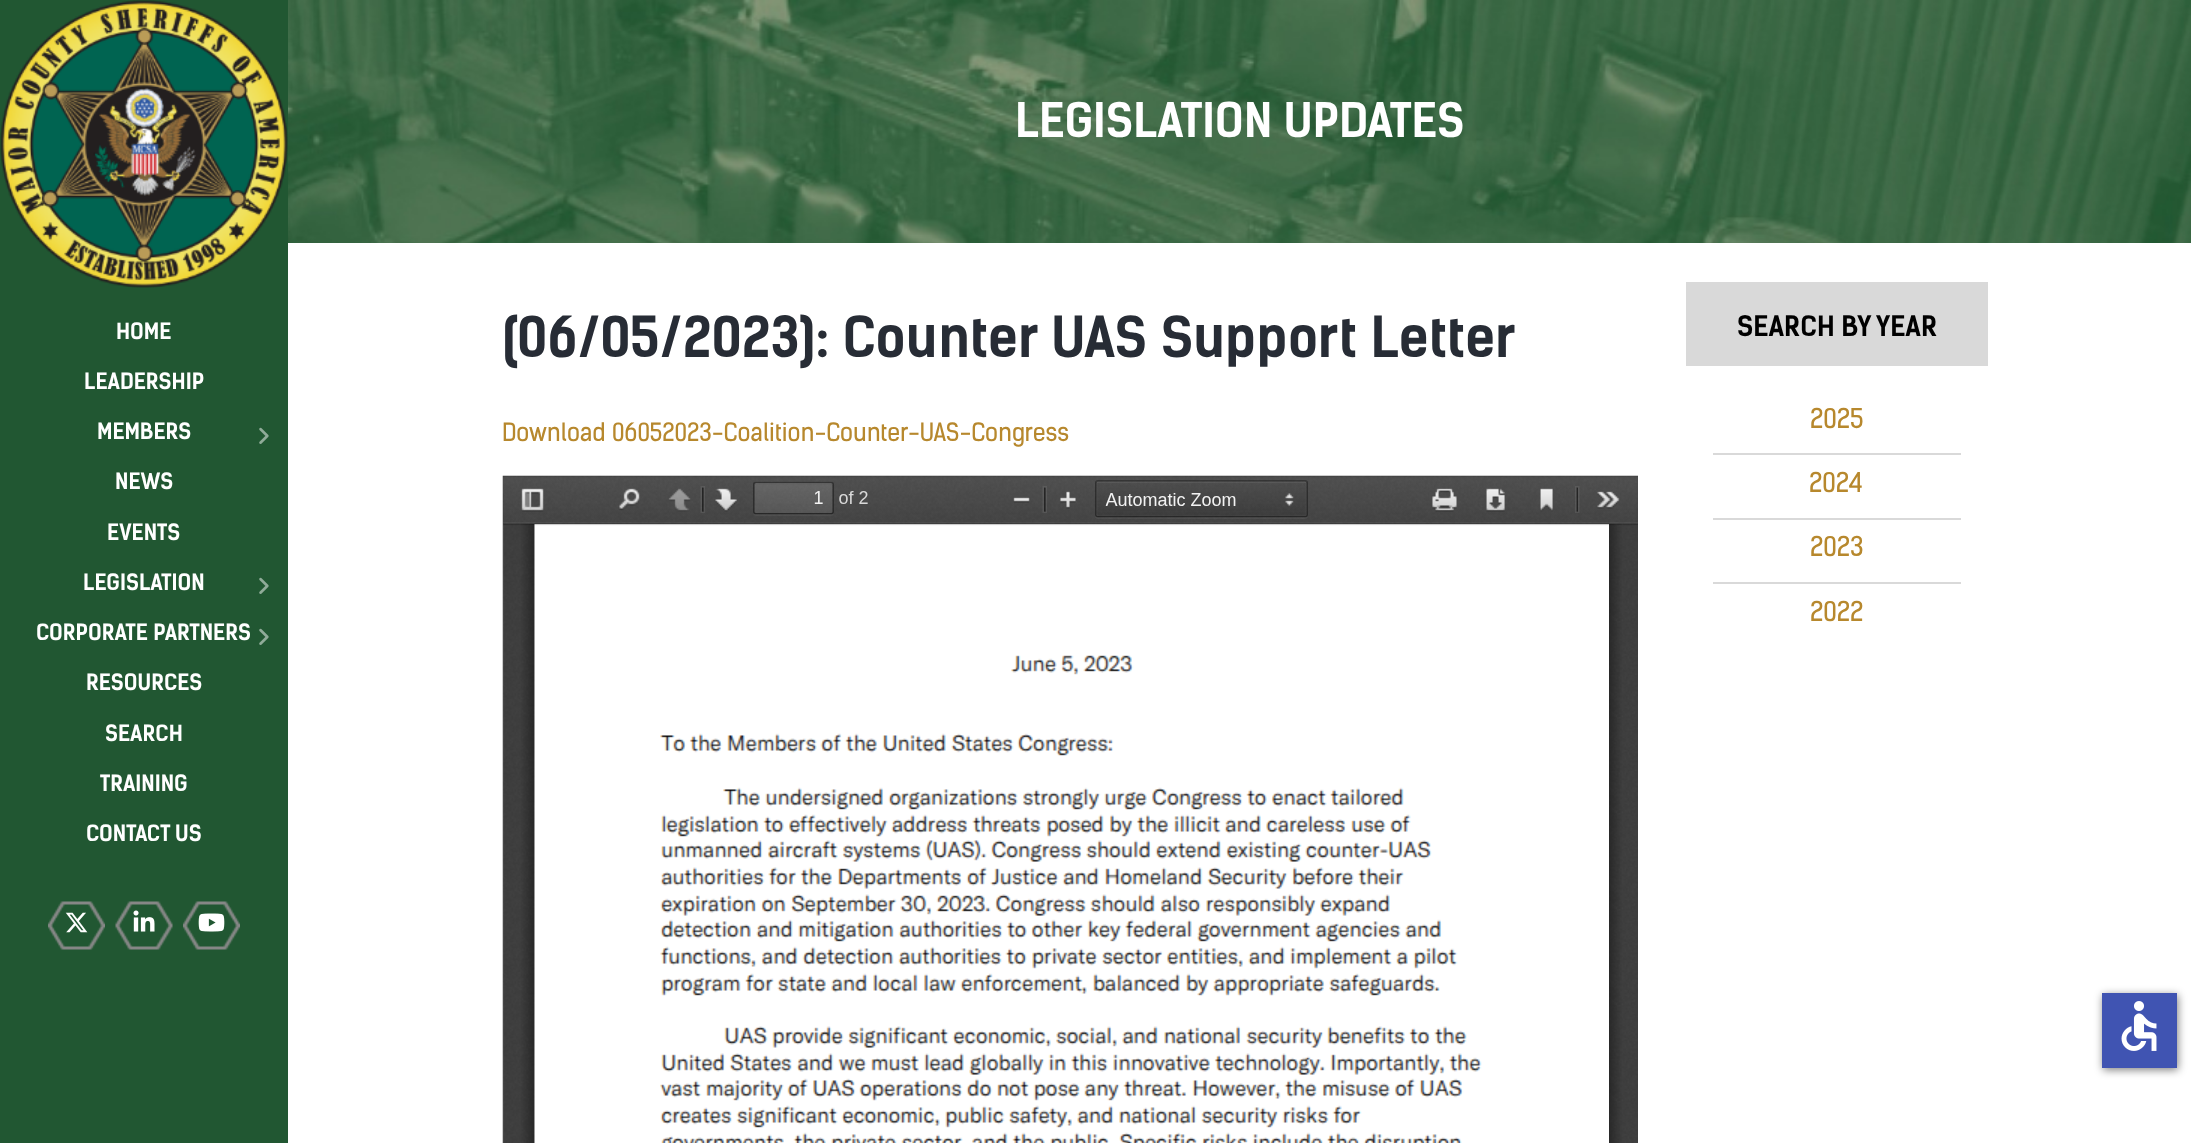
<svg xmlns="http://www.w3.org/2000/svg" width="2191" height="1143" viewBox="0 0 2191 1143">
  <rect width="100%" height="100%" fill="#fff"/>
  <image x="288" y="0" width="1903" height="243" href="img/1.png"/>
  <path d="M0 0h288v1143H0z" fill="#215732"/>
  <image x="0" y="0" width="288" height="288" href="img/2.png"/>
  <image x="259" y="427" width="10" height="17" href="img/3.png"/>
  <image x="259" y="577" width="10" height="17" href="img/3.png"/>
  <image x="259" y="628" width="10" height="17" href="img/3.png"/>
  <image x="48" y="901" width="57" height="49" href="img/4.png"/>
  <image x="65" y="912" width="23" height="21" href="img/5.png"/>
  <image x="115" y="901" width="58" height="49" href="img/6.png"/>
  <image x="133" y="910" width="22" height="22" href="img/7.png"/>
  <image x="183" y="901" width="57" height="49" href="img/4.png"/>
  <image x="198" y="913" width="27" height="19" href="img/8.png"/>
  <image x="502" y="475" width="1136" height="668" href="img/9.png"/>
  <path d="M1686 282h302v84H1686z" fill="#d9d9d9"/>
  <path d="M1713 453h248v2H1713z" fill="#d9d9d9"/>
  <path d="M1713 518h248v2H1713z" fill="#d9d9d9"/>
  <path d="M1713 582h248v2H1713z" fill="#d9d9d9"/>
  <path d="M2103 995h75v75H2103z" fill="#00000080" filter="blur(4px)"/>
  <path d="M2102 993h75v75H2102z" fill="#4054b2"/>
  <image x="2121" y="1001" width="36" height="50" href="img/10.png"/>
  <text x="1015" y="137" font-family="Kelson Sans" font-size="45.5" font-weight="bold" fill="#fff">LEGISLATION UPDATES</text>
  <g font-family="Kelson Sans" font-size="21.5" font-weight="bold" fill="#fff">
    <text x="116" y="339">HOME</text>
    <text x="84" y="389">LEADERSHIP</text>
    <text x="97" y="439">MEMBERS</text>
    <text x="115" y="489">NEWS</text>
    <text x="107" y="540">EVENTS</text>
    <text x="83" y="590">LEGISLATION</text>
    <text x="36" y="640">CORPORATE PARTNERS</text>
    <text x="86" y="690">RESOURCES</text>
    <text x="105" y="741">SEARCH</text>
    <text x="100" y="791">TRAINING</text>
    <text x="86" y="841">CONTACT US</text>
  </g>
  <text x="502" y="357" font-family="Kelson Sans" font-size="54" font-weight="bold" fill="#272c35">(06/05/2023): Counter UAS Support Letter</text>
  <text x="502" y="441" font-family="Kelson Sans" font-size="24" fill="#b7882d">Download 06052023-Coalition-Counter-UAS-Congress</text>
  <text x="1737" y="336" font-family="Kelson Sans" font-size="27" font-weight="bold" fill="#000">SEARCH BY YEAR</text>
  <g font-family="Kelson Sans" font-size="26" fill="#b7882d">
    <text x="1810" y="428">2025</text>
    <text x="1809" y="492">2024</text>
    <text x="1810" y="556">2023</text>
    <text x="1810" y="621">2022</text>
  </g>
</svg>
